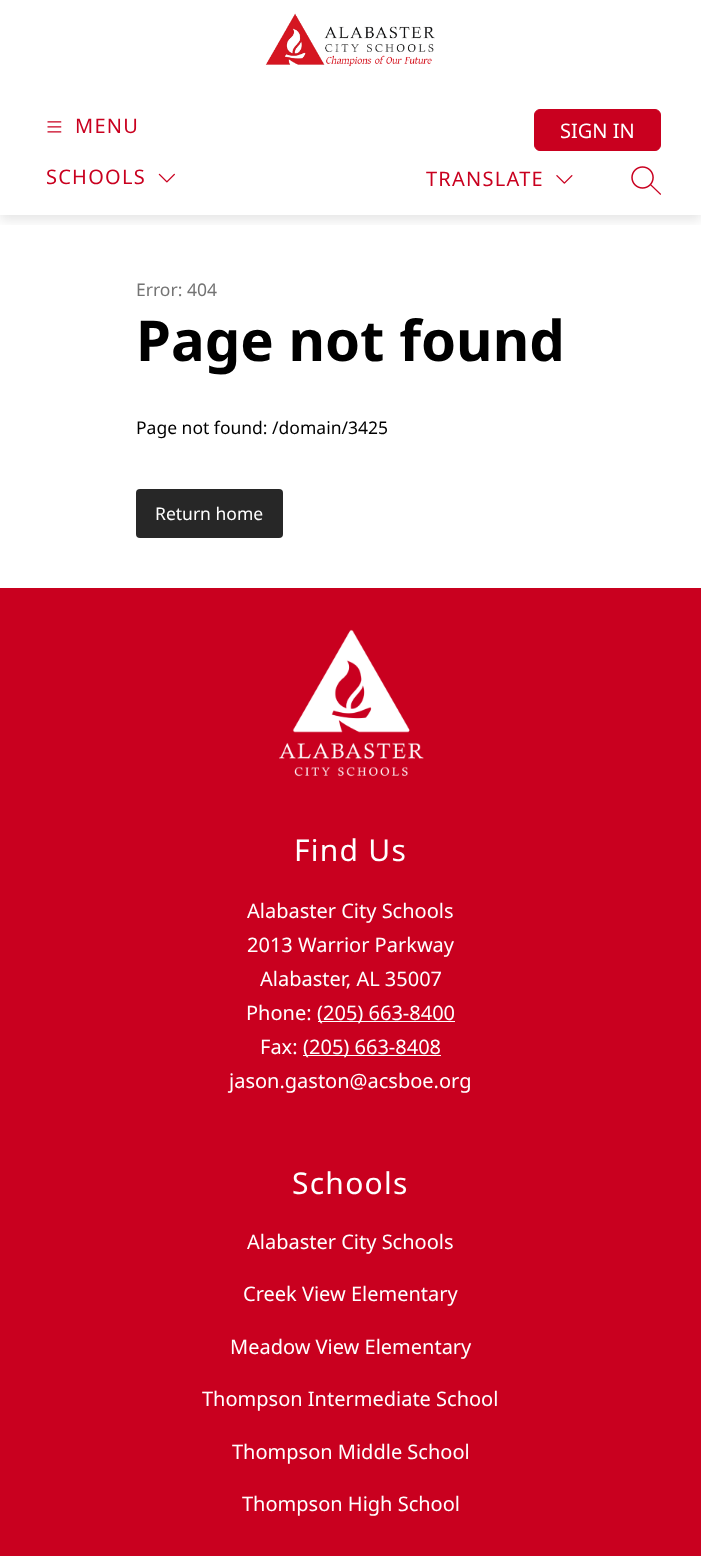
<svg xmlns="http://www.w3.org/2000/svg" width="701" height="1556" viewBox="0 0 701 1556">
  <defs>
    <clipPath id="clip1"><path d="M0 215h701v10H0z"/></clipPath>
  </defs>
  <rect width="100%" height="100%" fill="#fff"/>
  <g clip-path="url(#clip1)">
    <path d="M0 5h701v215H0z" fill="#0000001a" filter="blur(6px)"/>
  </g>
  <image x="265" y="13" width="170" height="54" href="img/1.png"/>
  <image x="47" y="121" width="15" height="12" href="img/2.png"/>
  <image x="158" y="173" width="17" height="10" href="img/3.png"/>
  <rect x="534.5" y="109.5" width="126" height="41" rx="5.5" fill="#c9001f" stroke="#c9001f"/>
  <image x="556" y="175" width="17" height="9" href="img/4.png"/>
  <image x="631" y="166" width="30" height="29" href="img/5.png"/>
  <rect x="136" y="489" width="147" height="49" rx="4" fill="#272727"/>
  <path d="M0 588h701v968H0z" fill="#c9001f"/>
  <image x="279" y="629" width="145" height="148" href="img/6.png"/>
  <path d="M318 1021h137v1H318z" fill="#fff"/>
  <path d="M303 1055h138v1H303z" fill="#fff"/>
  <g font-family="Noto Sans" font-size="20" letter-spacing="1.25" fill="#c9001f">
    <text x="75" y="133">MENU</text>
    <text x="46" y="184">SCHOOLS</text>
  </g>
  <text x="560" y="138" font-family="Noto Sans" font-size="20" fill="#fff">SIGN IN</text>
  <text x="426" y="186" font-family="Noto Sans" font-size="20" letter-spacing="1.25" fill="#c9001f">TRANSLATE</text>
  <text x="136" y="296" font-family="Noto Sans" font-size="17.5" fill="#747474">Error: 404</text>
  <text x="136" y="361" font-family="Noto Sans" font-size="56.25" font-weight="bold" fill="#000">Page not found</text>
  <text x="136" y="434" font-family="Noto Sans" font-size="17.5" fill="#000">Page not found: /domain/3425</text>
  <text x="155" y="520" font-family="Noto Sans" font-size="17.5" fill="#fff">Return home</text>
  <text x="294" y="861" font-family="Noto Sans" font-size="30" letter-spacing="1.25" fill="#fff">Find Us</text>
  <g font-family="Noto Sans" font-size="20" fill="#fff">
    <text x="247" y="918">Alabaster City Schools</text>
    <text x="247" y="952">2013 Warrior Parkway</text>
    <text x="260" y="986">Alabaster, AL 35007</text>
    <text x="246" y="1020">Phone:</text>
    <text x="317" y="1020">(205) 663-8400</text>
    <text x="260" y="1054">Fax:</text>
    <text x="303" y="1054">(205) 663-8408</text>
    <text x="229" y="1088">jason.gaston@acsboe.org</text>
  </g>
  <text x="292" y="1194" font-family="Noto Sans" font-size="30" letter-spacing="1.25" fill="#fff">Schools</text>
  <g font-family="Noto Sans" font-size="20" fill="#fff">
    <text x="247" y="1249">Alabaster City Schools</text>
    <text x="243" y="1301">Creek View Elementary</text>
    <text x="230" y="1354">Meadow View Elementary</text>
    <text x="202" y="1406">Thompson Intermediate School</text>
    <text x="232" y="1459">Thompson Middle School</text>
    <text x="242" y="1511">Thompson High School</text>
  </g>
</svg>
